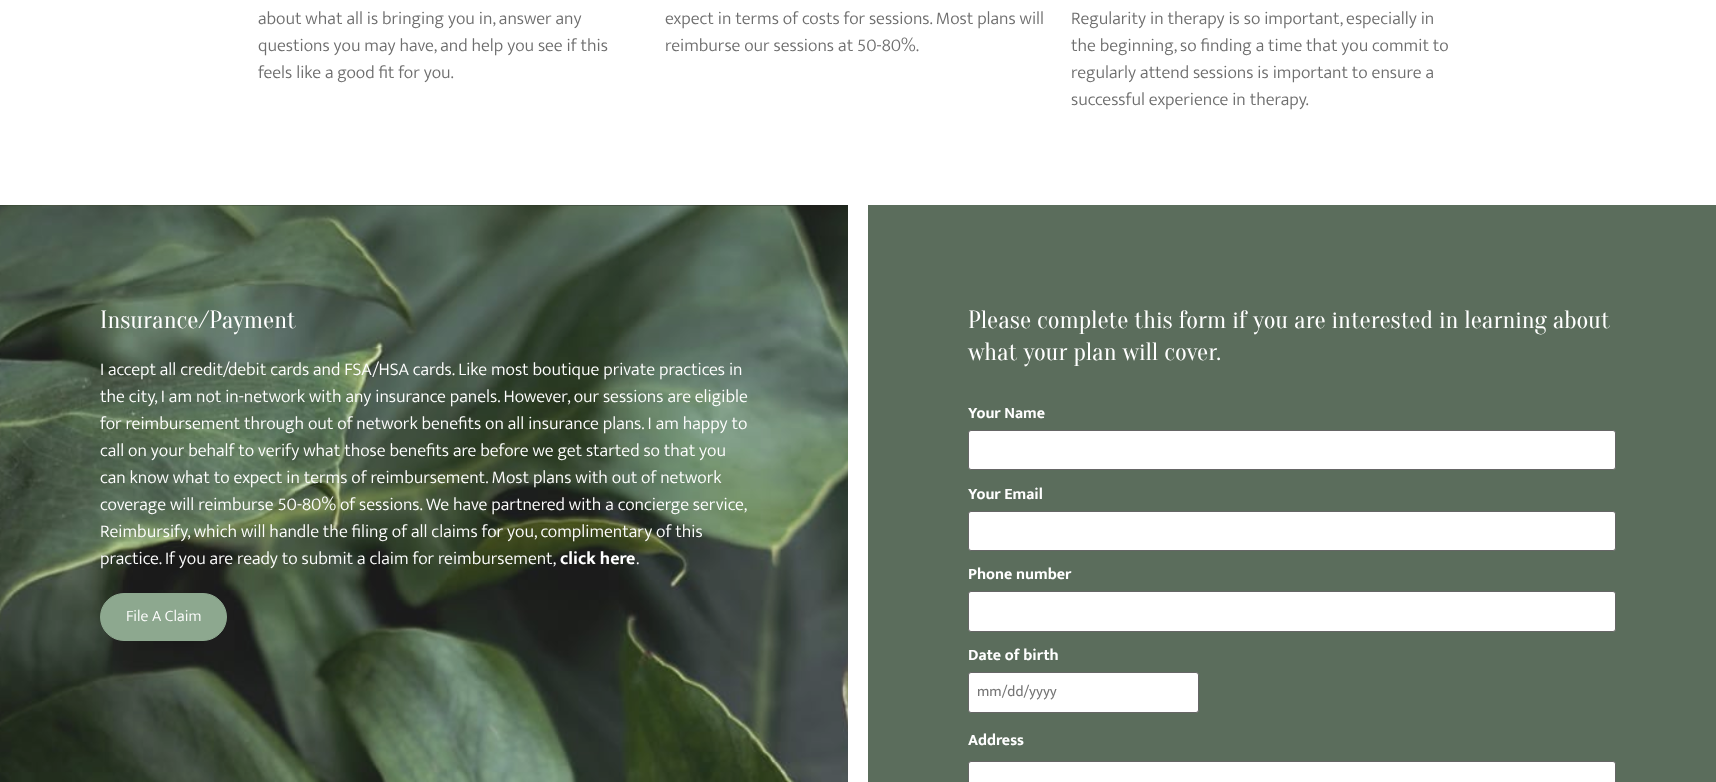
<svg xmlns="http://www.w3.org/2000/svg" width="1716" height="782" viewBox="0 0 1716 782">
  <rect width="100%" height="100%" fill="#fff"/>
  <image x="0" y="205" width="848" height="577" href="img/1.png"/>
  <rect x="100.5" y="593.5" width="126" height="47" rx="23.5" fill="#8da88f" stroke="#8da88f"/>
  <path d="M868 205h848v577H868z" fill="#5b6d5c"/>
  <rect x="968.5" y="430.5" width="647" height="39" rx="2.5" fill="#fff" stroke="#666"/>
  <rect x="968.5" y="511.5" width="647" height="39" rx="2.5" fill="#fff" stroke="#666"/>
  <rect x="968.5" y="591.5" width="647" height="40" rx="2.5" fill="#fff" stroke="#666"/>
  <rect x="968.5" y="672.5" width="230" height="40" rx="2.5" fill="#fff" stroke="#666"/>
  <rect x="968.5" y="761.5" width="647" height="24" rx="2.5" fill="#fff" stroke="#666"/>
  <g font-family="Mukta Vaani" font-size="18" font-weight="300" fill="#6e6e6e">
    <text x="258" y="24">about what all is bringing you in, answer any</text>
    <text x="258" y="51">questions you may have, and help you see if this</text>
    <text x="258" y="78">feels like a good fit for you.</text>
    <text x="665" y="24">expect in terms of costs for sessions. Most plans will</text>
    <text x="665" y="51">reimburse our sessions at 50-80%.</text>
    <text x="1071" y="24">Regularity in therapy is so important, especially in</text>
    <text x="1071" y="51">the beginning, so finding a time that you commit to</text>
    <text x="1071" y="78">regularly attend sessions is important to ensure a</text>
    <text x="1071" y="105">successful experience in therapy.</text>
  </g>
  <text x="100" y="328" font-family="Oranienbaum" font-size="25" fill="#fff">Insurance/Payment</text>
  <g font-family="Mukta Vaani" font-size="18" font-weight="300" fill="#fff">
    <text x="100" y="375">I accept all credit/debit cards and FSA/HSA cards. Like most boutique private practices in</text>
    <text x="100" y="402">the city, I am not in-network with any insurance panels. However, our sessions are eligible</text>
    <text x="100" y="429">for reimbursement through out of network benefits on all insurance plans. I am happy to</text>
    <text x="100" y="456">call on your behalf to verify what those benefits are before we get started so that you</text>
    <text x="100" y="483">can know what to expect in terms of reimbursement. Most plans with out of network</text>
    <text x="100" y="510">coverage will reimburse 50-80% of sessions.</text>
    <text x="426" y="510">We have partnered with a concierge service,</text>
    <text x="100" y="537">Reimbursify, which will handle the filing of all claims for you, complimentary of this</text>
    <text x="100" y="564">practice. If you are ready to submit a claim for reimbursement,</text>
  </g>
  <text x="560" y="564" font-family="Mukta Vaani" font-size="18" font-weight="bold" fill="#fff">click here</text>
  <text x="636" y="564" font-family="Mukta Vaani" font-size="18" font-weight="300" fill="#fff">.</text>
  <text x="126" y="621" font-family="Mukta Vaani" font-size="16" font-weight="300" fill="#fff">File A Claim</text>
  <g font-family="Oranienbaum" font-size="25" fill="#fff">
    <text x="968" y="328">Please complete this form if you are interested in learning about</text>
    <text x="968" y="360">what your plan will cover.</text>
  </g>
  <g font-family="Mukta Vaani" font-size="16" font-weight="bold" fill="#fff">
    <text x="968" y="418">Your Name</text>
    <text x="968" y="499">Your Email</text>
    <text x="968" y="579">Phone number</text>
    <text x="968" y="660">Date of birth</text>
  </g>
  <text x="977" y="696" font-family="Mukta Vaani" font-size="15" fill="#757575">mm/dd/yyyy</text>
  <text x="968" y="745" font-family="Mukta Vaani" font-size="16" font-weight="bold" fill="#fff">Address</text>
</svg>
